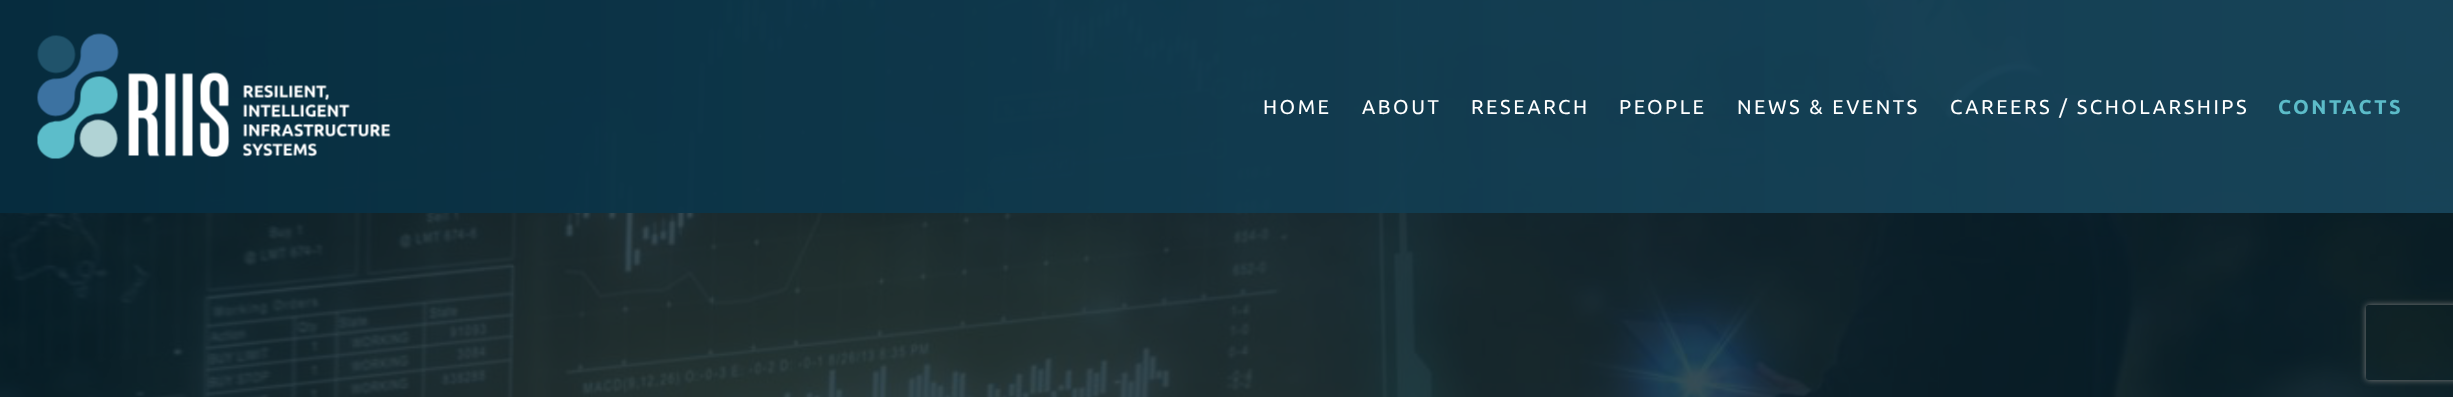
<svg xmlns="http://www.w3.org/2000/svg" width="2453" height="397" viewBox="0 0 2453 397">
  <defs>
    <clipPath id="clip1"><path d="M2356 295H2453V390H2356ZM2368.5 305H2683.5C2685 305 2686 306 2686 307.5V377.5C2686 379 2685 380 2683.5 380H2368.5C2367 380 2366 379 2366 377.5V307.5C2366 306 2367 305 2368.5 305Z" clip-rule="evenodd"/></clipPath>
  </defs>
  <rect width="100%" height="100%" fill="#fff"/>
  <image x="0" y="0" width="2453" height="397" href="img/1.png"/>
  <g clip-path="url(#clip1)">
    <rect x="2366" y="305" width="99" height="75" rx="2.5" fill="#808080" filter="blur(3px)"/>
  </g>
  <image x="37" y="33" width="354" height="126" href="img/2.png"/>
  <g font-family="Ubuntu" font-size="20" letter-spacing="2.5" fill="#fff">
    <text x="1263" y="114">HOME</text>
    <text x="1362" y="114">ABOUT</text>
    <text x="1471" y="114">RESEARCH</text>
    <text x="1619" y="114">PEOPLE</text>
    <text x="1737" y="114">NEWS &amp; EVENTS</text>
    <text x="1950" y="114">CAREERS / SCHOLARSHIPS</text>
  </g>
  <text x="2278" y="114" font-family="Ubuntu" font-size="20" font-weight="bold" letter-spacing="2.5" fill="#5cbcc9">CONTACTS</text>
</svg>
